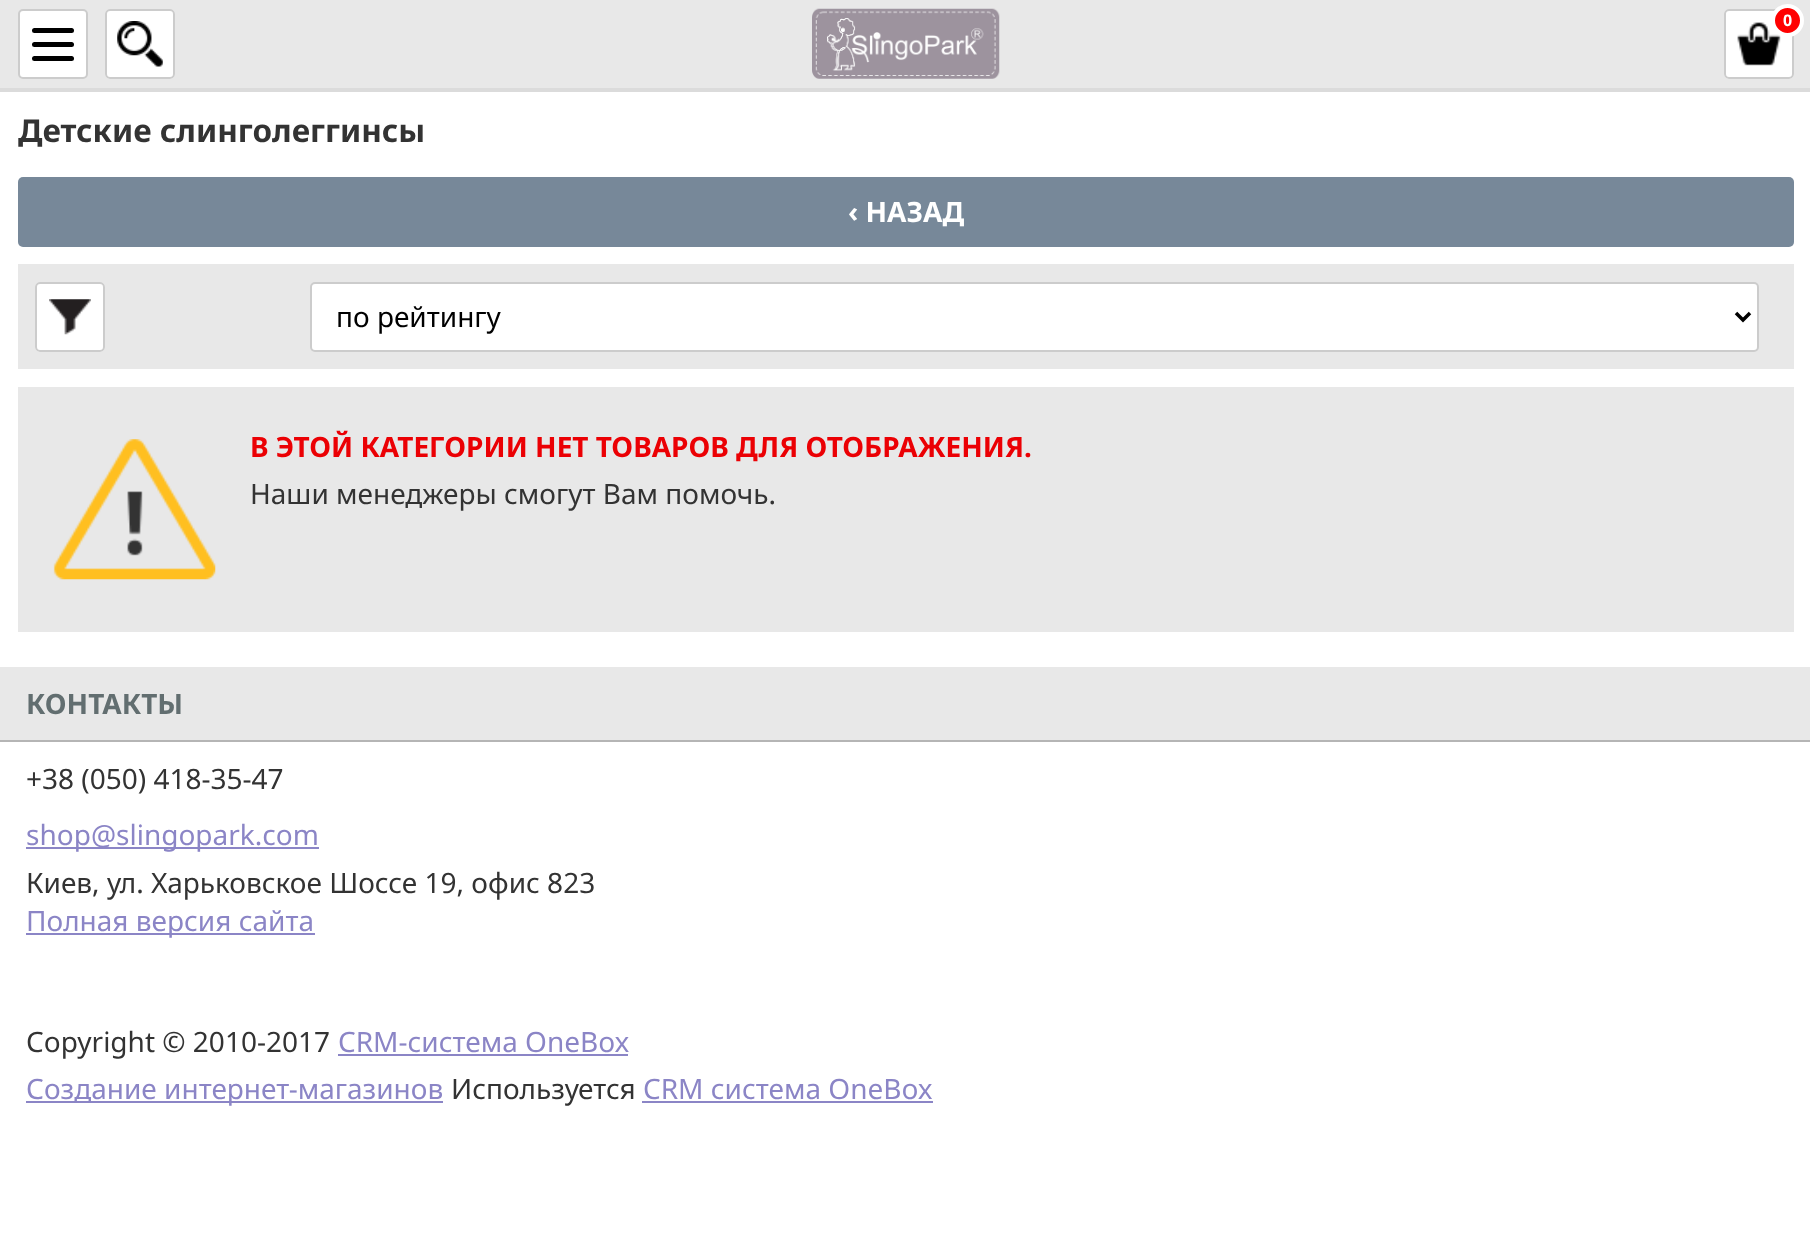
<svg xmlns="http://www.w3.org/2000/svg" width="1810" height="1252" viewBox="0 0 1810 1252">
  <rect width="100%" height="100%" fill="#fff"/>
  <path d="M0 0h1810v88H0z" fill="#e8e8e8"/>
  <path d="M0 88h1810v4H0z" fill="#dbdbdb"/>
  <rect x="19" y="10" width="68" height="68" rx="4" fill="#fff" stroke="#ccc" stroke-width="2"/>
  <rect x="32" y="28" width="42" height="5" rx="2.5" fill="#000"/>
  <rect x="32" y="42" width="42" height="5" rx="2.5" fill="#000"/>
  <rect x="32" y="56" width="42" height="5" rx="2.5" fill="#000"/>
  <rect x="105" y="9" width="70" height="70" rx="5" fill="#fff"/>
  <image x="117" y="21" width="46" height="46" href="img/1.png"/>
  <rect x="106" y="10" width="68" height="68" rx="4" fill="none" stroke="#ccc" stroke-width="2"/>
  <image x="812" y="8" width="188" height="71" href="img/2.png"/>
  <rect x="1724" y="9" width="70" height="70" rx="5" fill="#fff"/>
  <image x="1737" y="22" width="44" height="44" href="img/3.png"/>
  <rect x="1725" y="10" width="68" height="68" rx="4" fill="none" stroke="#ccc" stroke-width="2"/>
  <circle cx="1787.5" cy="20.5" r="14.5" fill="#f00" stroke="#fff" stroke-width="4"/>
  <rect x="18" y="177" width="1776" height="70" rx="5" fill="#789"/>
  <path d="M18 264h1776v105H18z" fill="#e8e8e8"/>
  <rect x="35" y="282" width="70" height="70" rx="5" fill="#fff"/>
  <image x="49" y="299" width="42" height="36" href="img/4.png"/>
  <rect x="36" y="283" width="68" height="68" rx="4" fill="none" stroke="#ccc" stroke-width="2"/>
  <rect x="311" y="283" width="1447" height="68" rx="4" fill="#fff" stroke="#ccc" stroke-width="2"/>
  <path d="M1736 313L1743 320L1750 313" fill="none" stroke="#000" stroke-width="3.5"/>
  <path d="M18 387h1776v245H18z" fill="#e8e8e8"/>
  <image x="53" y="439" width="163" height="141" href="img/5.png"/>
  <path d="M0 667h1810v73H0z" fill="#e8e8e8"/>
  <path d="M0 740h1810v2H0z" fill="#b5b5b5"/>
  <path d="M26 847h293v2H26z" fill="#8b85c6"/>
  <path d="M26 933h289v2H26z" fill="#8b85c6"/>
  <path d="M338 1054h290v2H338z" fill="#8b85c6"/>
  <path d="M26 1101h417v2H26z" fill="#8b85c6"/>
  <path d="M642 1101h291v2H642z" fill="#8b85c6"/>
  <text x="1783" y="26" font-family="Noto Sans" font-size="16" font-weight="bold" fill="#fff">0</text>
  <text x="18" y="142" font-family="Noto Sans" font-size="31.5" font-weight="bold" fill="#333">Детские слинголеггинсы</text>
  <text x="848" y="222" font-family="Noto Sans" font-size="28" font-weight="bold" fill="#fff">‹ НАЗАД</text>
  <text x="336" y="327" font-family="Noto Sans" font-size="28" fill="#000">по рейтингу</text>
  <text x="250" y="457" font-family="Noto Sans" font-size="28" font-weight="bold" fill="#eb0004">В ЭТОЙ КАТЕГОРИИ НЕТ ТОВАРОВ ДЛЯ ОТОБРАЖЕНИЯ.</text>
  <text x="250" y="504" font-family="Noto Sans" font-size="28" fill="#333">Наши менеджеры смогут Вам помочь.</text>
  <text x="26" y="714" font-family="Noto Sans" font-size="28" font-weight="bold" fill="#626e70">КОНТАКТЫ</text>
  <text x="26" y="789" font-family="Noto Sans" font-size="28" fill="#333">+38 (050) 418-35-47</text>
  <text x="26" y="845" font-family="Noto Sans" font-size="28" fill="#8b85c6">shop@slingopark.com</text>
  <text x="26" y="893" font-family="Noto Sans" font-size="28" fill="#333">Киев, ул. Харьковское Шоссе 19, офис 823</text>
  <text x="26" y="931" font-family="Noto Sans" font-size="28" fill="#8b85c6">Полная версия сайта</text>
  <text x="26" y="1052" font-family="Noto Sans" font-size="28" fill="#333">Copyright © 2010-2017</text>
  <g font-family="Noto Sans" font-size="28" fill="#8b85c6">
    <text x="338" y="1052">CRM-система OneBox</text>
    <text x="26" y="1099">Создание интернет-магазинов</text>
  </g>
  <text x="451" y="1099" font-family="Noto Sans" font-size="28" fill="#333">Используется</text>
  <text x="643" y="1099" font-family="Noto Sans" font-size="28" fill="#8b85c6">CRM система OneBox</text>
</svg>
